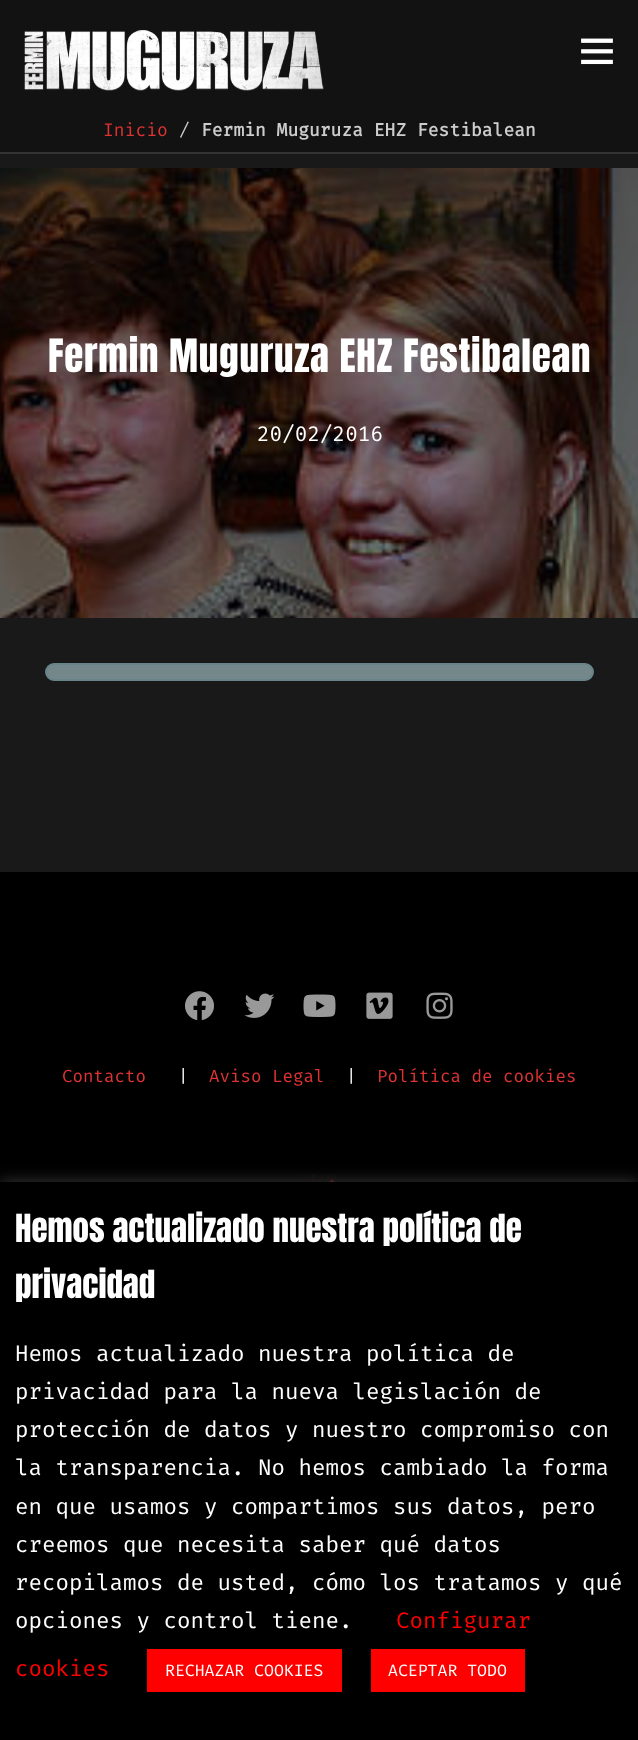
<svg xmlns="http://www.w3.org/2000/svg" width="638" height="1740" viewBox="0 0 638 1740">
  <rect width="100%" height="100%" fill="#191919"/>
  <path d="M0 152h638v2H0z" fill="#333"/>
  <path d="M0 0h638v152H0z" fill="#121212"/>
  <image x="24" y="30" width="300" height="61" href="img/1.png"/>
  <image x="581" y="38" width="32" height="27" href="img/2.png"/>
  <image x="0" y="168" width="638" height="450" href="img/3.png"/>
  <rect x="46" y="664" width="547" height="16" rx="8" fill="#74878b" stroke="#68848a" stroke-width="2"/>
  <path d="M0 872h638v310H0z" fill="#000"/>
  <image x="185" y="991" width="29" height="29" href="img/4.png"/>
  <image x="244" y="993" width="31" height="25" href="img/5.png"/>
  <image x="303" y="994" width="33" height="23" href="img/6.png"/>
  <image x="366" y="992" width="27" height="27" href="img/7.png"/>
  <image x="426" y="992" width="27" height="27" href="img/8.png"/>
  <image x="264" y="1174" width="108" height="8" href="img/9.png"/>
  <path d="M0 1181h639v558H0z" fill="#acabab4d" filter="blur(7.5px)"/>
  <path d="M0 1182h638v558H0z" fill="#000"/>
  <path d="M147 1649h195v43H147z" fill="#f00"/>
  <path d="M371 1649h154v43H371z" fill="#f00"/>
  <text x="103" y="136" font-family="Fira Mono" font-size="18" fill="#d33">Inicio</text>
  <text x="179" y="136" font-family="Fira Mono" font-size="18" fill="#ccc">/</text>
  <text x="201" y="136" font-family="Fira Mono" font-size="18" font-weight="bold" fill="#ccc">Fermin Muguruza EHZ Festibalean</text>
  <text x="48" y="372" font-family="Anton" font-size="39" letter-spacing="0.75" fill="#fff">Fermin Muguruza EHZ Festibalean</text>
  <text x="257" y="441" font-family="Fira Mono" font-size="21" fill="#fff">20/02/2016</text>
  <text x="62" y="1082" font-family="Fira Mono" font-size="17.5" fill="#d33">Contacto</text>
  <text x="178" y="1082" font-family="Fira Mono" font-size="17.5" fill="#fff">|</text>
  <text x="209" y="1082" font-family="Fira Mono" font-size="17.5" fill="#d33">Aviso Legal</text>
  <text x="346" y="1082" font-family="Fira Mono" font-size="17.5" fill="#fff">|</text>
  <text x="377" y="1082" font-family="Fira Mono" font-size="17.5" fill="#d33">Política de cookies</text>
  <g font-family="Anton" font-size="33" fill="#fff">
    <text x="15" y="1242">Hemos actualizado nuestra política de</text>
    <text x="15" y="1298">privacidad</text>
  </g>
  <g font-family="Fira Mono" font-size="22.5" fill="#fff">
    <text x="15" y="1361">Hemos actualizado nuestra política de</text>
    <text x="15" y="1399">privacidad para la nueva legislación de</text>
    <text x="15" y="1437">protección de datos y nuestro compromiso con</text>
    <text x="15" y="1475">la transparencia. No hemos cambiado la forma</text>
    <text x="15" y="1514">en que usamos y compartimos sus datos, pero</text>
    <text x="15" y="1552">creemos que necesita saber qué datos</text>
    <text x="15" y="1590">recopilamos de usted, cómo los tratamos y qué</text>
    <text x="15" y="1628">opciones y control tiene.</text>
  </g>
  <g font-family="Fira Mono" font-size="22.5" fill="#f00">
    <text x="396" y="1628">Configurar</text>
    <text x="15" y="1676">cookies</text>
  </g>
  <g font-family="Fira Mono" font-size="16.5" fill="#fff">
    <text x="165" y="1676">RECHAZAR COOKIES</text>
    <text x="388" y="1676">ACEPTAR TODO</text>
  </g>
</svg>
